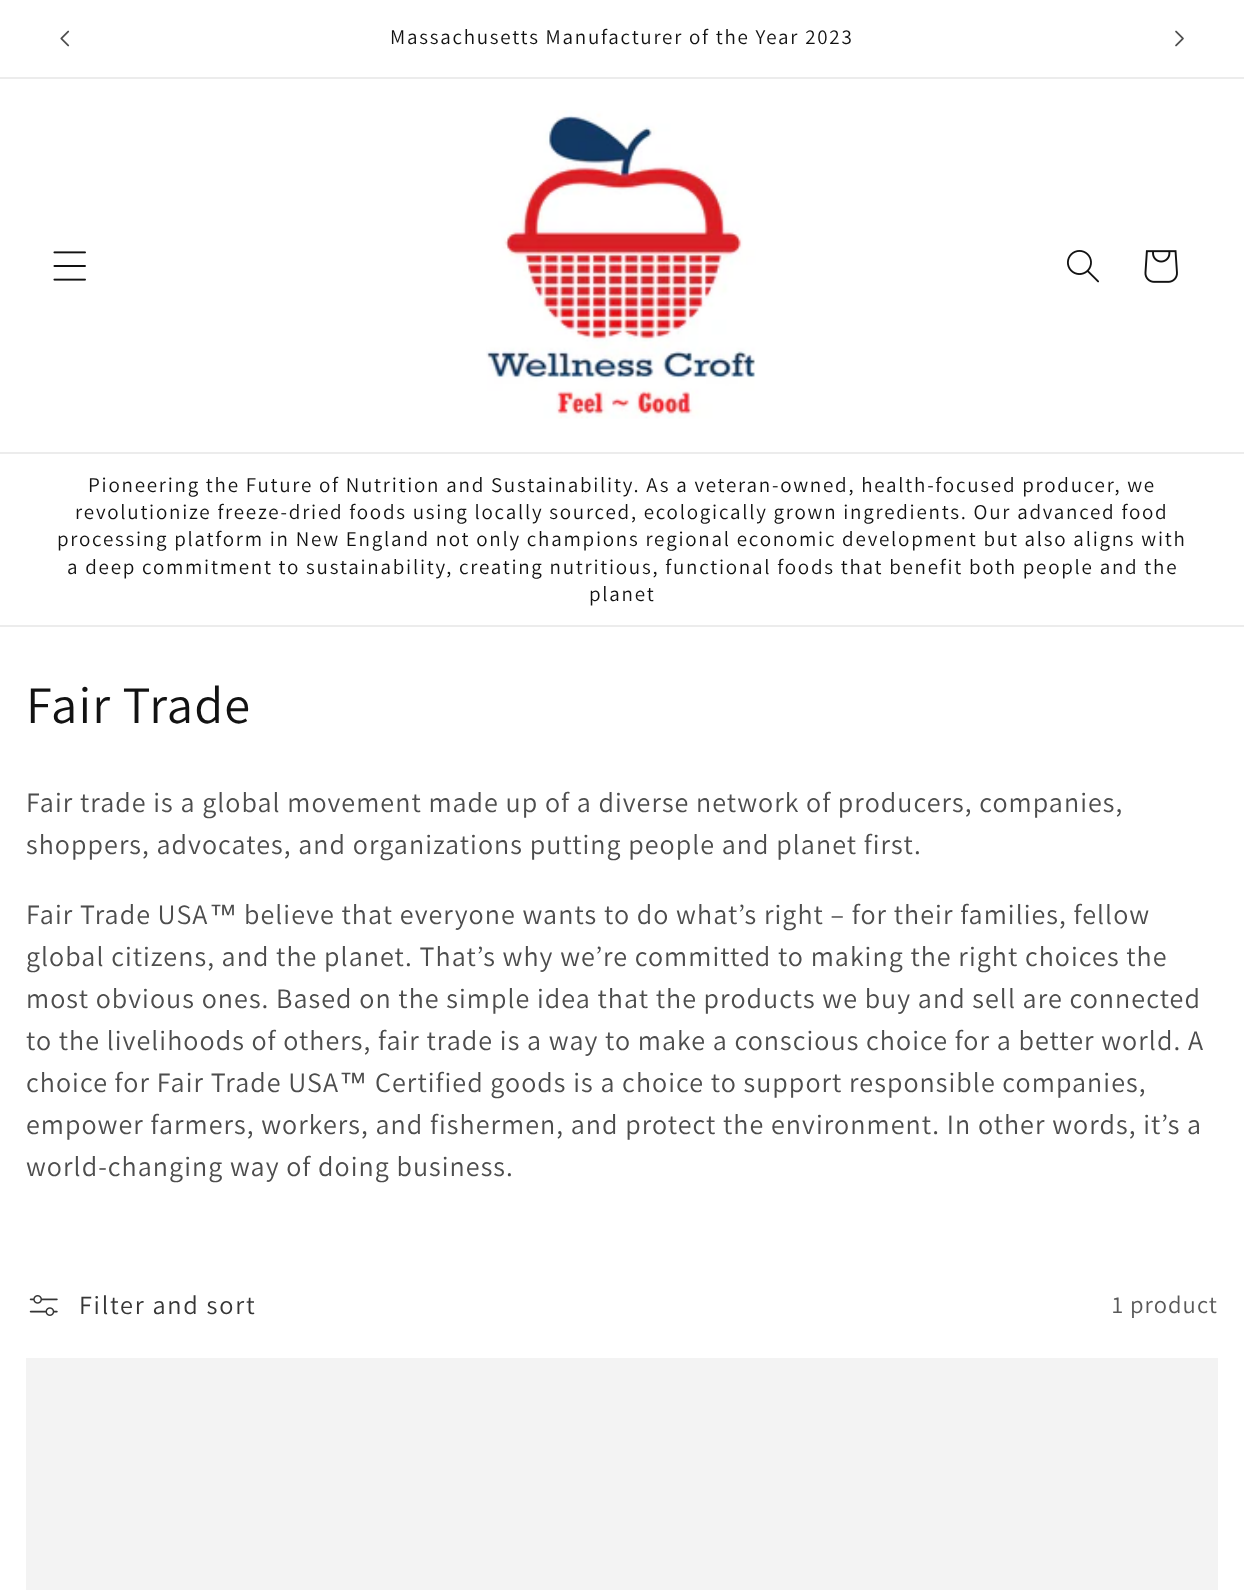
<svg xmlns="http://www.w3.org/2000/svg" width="1244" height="1590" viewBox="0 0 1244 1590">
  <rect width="100%" height="100%" fill="#fff"/>
  <path d="M0 77h1244v2H0z" fill="#ececec"/>
  <image x="60" y="30" width="10" height="17" href="img/1.png"/>
  <image x="1175" y="30" width="9" height="17" href="img/2.png"/>
  <path d="M0 452h1244v2H0z" fill="#ececec"/>
  <image x="53" y="251" width="33" height="30" href="img/3.png"/>
  <image x="486" y="110" width="270" height="309" href="img/4.png"/>
  <image x="1067" y="250" width="32" height="33" href="img/5.png"/>
  <image x="1144" y="250" width="34" height="33" href="img/6.png"/>
  <path d="M0 625h1244v2H0z" fill="#ececec"/>
  <image x="29" y="1295" width="29" height="21" href="img/7.png"/>
  <path d="M26 1358h1192v232H26z" fill="#f3f3f3"/>
  <g font-family="Assistant" font-size="21" letter-spacing="1.75" fill="#121212">
    <text x="390" y="44">Massachusetts Manufacturer of the Year 2023</text>
    <text x="88" y="492">Pioneering the Future of Nutrition and Sustainability. As a veteran-owned, health-focused producer, we</text>
    <text x="75" y="519">revolutionize freeze-dried foods using locally sourced, ecologically grown ingredients. Our advanced food</text>
    <text x="57" y="546">processing platform in New England not only champions regional economic development but also aligns with</text>
    <text x="67" y="574">a deep commitment to sustainability, creating nutritious, functional foods that benefit both people and the</text>
    <text x="589" y="601">planet</text>
  </g>
  <text x="26" y="723" font-family="Assistant" font-size="52.5" letter-spacing="1.05" fill="#121212">Fair Trade</text>
  <g font-family="Assistant" font-size="28" letter-spacing="1.05" fill="#4d4d4d">
    <text x="26" y="812">Fair trade is a global movement made up of a diverse network of producers, companies,</text>
    <text x="26" y="854">shoppers, advocates, and organizations putting people and planet first.</text>
    <text x="26" y="924">Fair Trade USA</text>
  </g>
  <text x="209" y="924" font-family="Liberation Sans" font-size="28" letter-spacing="1.05" fill="#4d4d4d">™</text>
  <g font-family="Assistant" font-size="28" letter-spacing="1.05" fill="#4d4d4d">
    <text x="244" y="924">believe that everyone wants to do what’s right – for their families, fellow</text>
    <text x="26" y="966">global citizens, and the planet. That’s why we’re committed to making the right choices the</text>
    <text x="26" y="1008">most obvious ones. Based on the simple idea that the products we buy and sell are connected</text>
    <text x="26" y="1050">to the livelihoods of others, fair trade is a way to make a conscious choice for a better world. A</text>
    <text x="26" y="1092">choice for Fair Trade USA</text>
  </g>
  <text x="339" y="1092" font-family="Liberation Sans" font-size="28" letter-spacing="1.05" fill="#4d4d4d">™</text>
  <g font-family="Assistant" font-size="28" letter-spacing="1.05" fill="#4d4d4d">
    <text x="375" y="1092">Certified goods is a choice to support responsible companies,</text>
    <text x="26" y="1134">empower farmers, workers, and fishermen, and protect the environment. In other words, it’s a</text>
    <text x="26" y="1176">world-changing way of doing business.</text>
  </g>
  <text x="79" y="1314" font-family="Assistant" font-size="26.25" letter-spacing="1.75" fill="#363636">Filter and sort</text>
  <text x="1112" y="1313" font-family="Assistant" font-size="24.5" letter-spacing="1.05" fill="#595959">1 product</text>
</svg>
